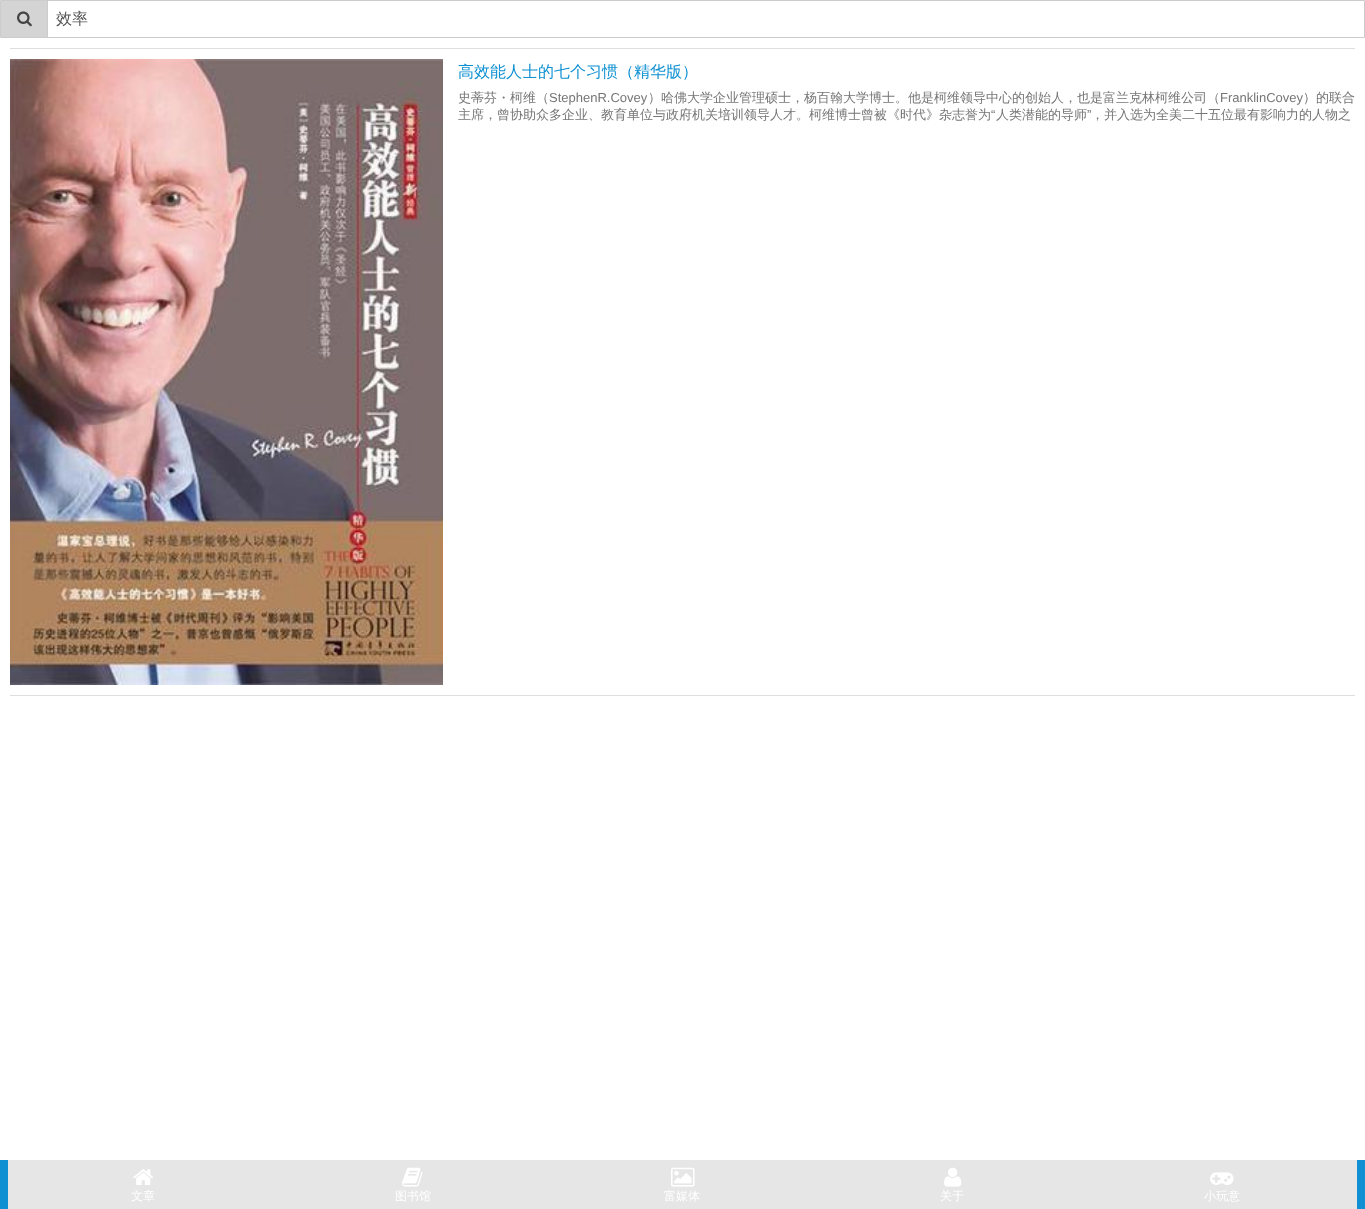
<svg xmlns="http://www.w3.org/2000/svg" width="1365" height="1209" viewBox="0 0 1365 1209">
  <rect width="100%" height="100%" fill="#fff"/>
  <path d="M1 1h46v36H1z" fill="#d4d4d4"/>
  <path d="M0.5 0.5h48v37H0.5z" fill="none" stroke="#ccc"/>
  <image x="17" y="11" width="15" height="16" href="img/1.png"/>
  <path d="M48 1h1v36H48z" fill="#fff"/>
  <path d="M47.5 0.5h1317v37H47.5z" fill="none" stroke="#ccc"/>
  <path d="M10 48h1345v1H10z" fill="#dedede"/>
  <path d="M10 695h1345v1H10z" fill="#dedede"/>
  <image x="10" y="59" width="433" height="626" href="img/2.png"/>
  <path d="M0 1160h1365v49H0z" fill="#0e90d2"/>
  <path d="M8 1160h1349v49H8z" fill="#e6e6e6"/>
  <image x="133" y="1169" width="20" height="16" href="img/3.png"/>
  <image x="402" y="1167" width="21" height="20" href="img/4.png"/>
  <image x="671" y="1167" width="24" height="20" href="img/5.png"/>
  <image x="944" y="1167" width="18" height="20" href="img/6.png"/>
  <image x="1210" y="1172" width="24" height="13" href="img/7.png"/>
  <text x="56" y="24" font-family="WenQuanYi Zen Hei" font-size="16" font-weight="500" fill="#555">效率</text>
  <text x="458" y="77" font-family="WenQuanYi Zen Hei" font-size="16" font-weight="500" fill="#0e90d2">高效能人士的七个习惯（精华版）</text>
  <text x="458" y="102" font-family="WenQuanYi Zen Hei" font-size="13" font-weight="500" fill="#757575">史蒂芬・柯维（</text>
  <text x="549" y="102" font-family="Liberation Sans" font-size="13" fill="#757575">StephenR.Covey</text>
  <text x="648" y="102" font-family="WenQuanYi Zen Hei" font-size="13" font-weight="500" fill="#757575">）哈佛大学企业管理硕士，杨百翰大学博士。他是柯维领导中心的创始人，也是富兰克林柯维公司（</text>
  <text x="1220" y="102" font-family="Liberation Sans" font-size="13" fill="#757575">FranklinCovey</text>
  <g font-family="WenQuanYi Zen Hei" font-size="13" font-weight="500" fill="#757575">
    <text x="1303" y="102">）的联合</text>
    <text x="458" y="119">主席，曾协助众多企业、教育单位与政府机关培训领导人才。柯维博士曾被《时代》杂志誉为</text>
  </g>
  <text x="991" y="119" font-family="Liberation Sans" font-size="13" fill="#757575">“</text>
  <text x="996" y="119" font-family="WenQuanYi Zen Hei" font-size="13" font-weight="500" fill="#757575">人类潜能的导师</text>
  <text x="1087" y="119" font-family="Liberation Sans" font-size="13" fill="#757575">”</text>
  <text x="1091" y="119" font-family="WenQuanYi Zen Hei" font-size="13" font-weight="500" fill="#757575">，并入选为全美二十五位最有影响力的人物之</text>
  <g font-family="WenQuanYi Zen Hei" font-size="12" font-weight="500" fill="#fff">
    <text x="131" y="1200">文章</text>
    <text x="395" y="1200">图书馆</text>
    <text x="664" y="1200">富媒体</text>
    <text x="940" y="1200">关于</text>
    <text x="1204" y="1200">小玩意</text>
  </g>
</svg>
